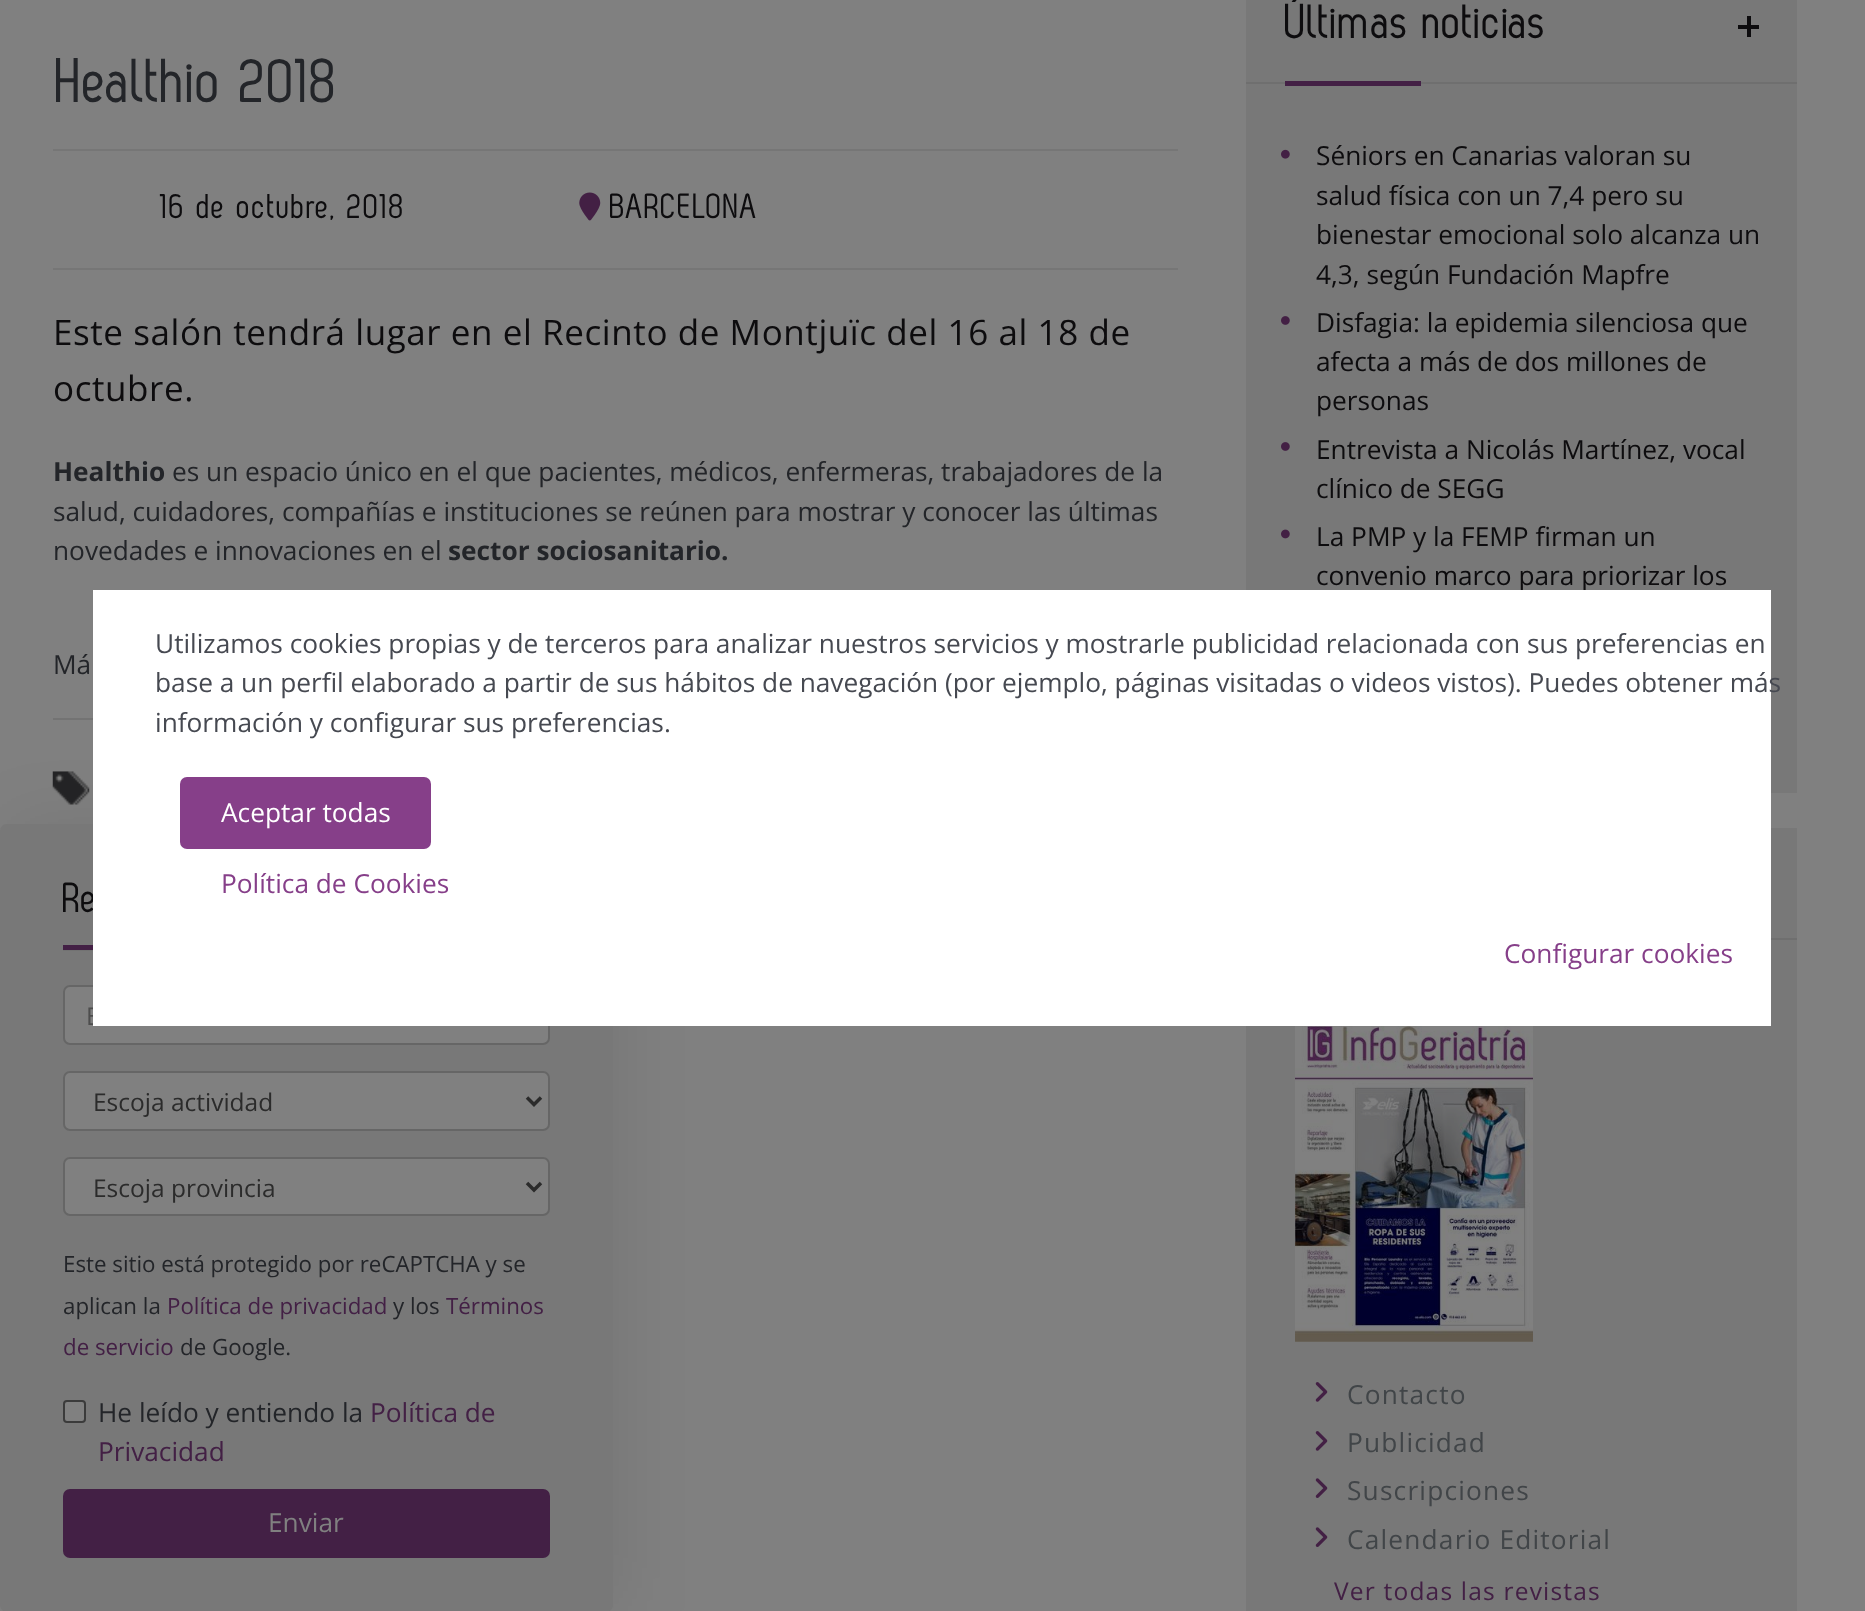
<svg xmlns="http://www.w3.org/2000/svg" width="1865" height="1611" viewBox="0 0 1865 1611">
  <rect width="100%" height="100%" fill="#808080"/>
  <path d="M53 149h1125v2H53z" fill="#767676"/>
  <path d="M53 268h1125v2H53z" fill="#767676"/>
  <image x="579" y="192" width="22" height="29" href="img/1.png"/>
  <path d="M53 718h40v2H53z" fill="#737373"/>
  <image x="52" y="771" width="38" height="34" href="img/2.png"/>
  <path d="M1246 0h551v793H1246z" fill="#787878"/>
  <path d="M1246 82h551v2H1246z" fill="#6f6f6f"/>
  <path d="M1738 25h21v4H1738z" fill="#0d0c0e"/>
  <path d="M1747 16h4v21H1747z" fill="#0d0c0e"/>
  <path d="M1285 81h136v5H1285z" fill="#432045"/>
  <image x="1281" y="149" width="9" height="10" href="img/3.png"/>
  <image x="1281" y="316" width="9" height="9" href="img/4.png"/>
  <image x="1281" y="442" width="9" height="9" href="img/4.png"/>
  <image x="1281" y="529" width="9" height="10" href="img/5.png"/>
  <path d="M1246 828h551v783H1246z" fill="#787878"/>
  <path d="M1771 938h26v2H1771z" fill="#6f6f6f"/>
  <image x="1295" y="1026" width="238" height="316" href="img/6.png"/>
  <image x="1315" y="1382" width="13" height="20" href="img/7.png"/>
  <image x="1315" y="1431" width="13" height="20" href="img/7.png"/>
  <image x="1315" y="1478" width="13" height="20" href="img/8.png"/>
  <image x="1315" y="1527" width="13" height="20" href="img/8.png"/>
  <rect x="9" y="824" width="612" height="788" rx="7" fill="#00000014" filter="blur(35px)"/>
  <rect y="824" width="613" height="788" rx="7" fill="#787878"/>
  <path d="M63 950h30v1H63z" fill="#727272"/>
  <path d="M63 945h30v5H63z" fill="#432045"/>
  <rect x="64" y="986" width="485" height="58" rx="6" fill="#808080" stroke="#666" stroke-width="2"/>
  <rect x="64" y="1072" width="485" height="58" rx="6" fill="#808080" stroke="#666" stroke-width="2"/>
  <path d="M527 1097.5L534 1104.5L541 1097.5" fill="none" stroke="#2b2b2b" stroke-width="3.5"/>
  <rect x="64" y="1158" width="485" height="57" rx="6" fill="#808080" stroke="#666" stroke-width="2"/>
  <path d="M527 1183L534 1190L541 1183" fill="none" stroke="#2b2b2b" stroke-width="3.5"/>
  <rect x="64" y="1401" width="21" height="21" rx="3" fill="#808080" stroke="#3b3b3b" stroke-width="2"/>
  <rect x="63" y="1489" width="487" height="69" rx="7" fill="#432045"/>
  <text x="56" y="102" font-family="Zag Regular" font-size="63" fill="#232529">Healthio 2018</text>
  <g font-family="Zag Regular" font-size="35" letter-spacing="0.9" fill="#0d0c0e">
    <text x="161" y="218">16 de octubre, 2018</text>
    <text x="610" y="218">BARCELONA</text>
  </g>
  <g font-family="Open Sans" font-size="35" letter-spacing="0.58" fill="#0d0c0e">
    <text x="53" y="345">Este salón tendrá lugar en el Recinto de Montjuïc del 16 al 18 de</text>
    <text x="53" y="401">octubre.</text>
  </g>
  <text x="53" y="481" font-family="Open Sans" font-size="26.25" font-weight="bold" fill="#232529">Healthio</text>
  <g font-family="Open Sans" font-size="26.25" fill="#232529">
    <text x="172" y="481">es un espacio único en el que pacientes, médicos, enfermeras, trabajadores de la</text>
    <text x="53" y="521">salud, cuidadores, compañías e instituciones se reúnen para mostrar y conocer las últimas</text>
    <text x="53" y="560">novedades e innovaciones en el</text>
  </g>
  <text x="448" y="560" font-family="Open Sans" font-size="26.25" font-weight="bold" fill="#232529">sector sociosanitario.</text>
  <text x="53" y="674" font-family="Open Sans" font-size="26.25" fill="#232529">Má</text>
  <text x="1285" y="38" font-family="Zag Regular" font-size="49" fill="#0d0c0e">Últimas noticias</text>
  <g font-family="Open Sans" font-size="26.25" fill="#0d0c0e">
    <text x="1316" y="165">Séniors en Canarias valoran su</text>
    <text x="1316" y="205">salud física con un 7,4 pero su</text>
    <text x="1316" y="244">bienestar emocional solo alcanza un</text>
    <text x="1316" y="284">4,3, según Fundación Mapfre</text>
    <text x="1316" y="332">Disfagia: la epidemia silenciosa que</text>
    <text x="1316" y="371">afecta a más de dos millones de</text>
    <text x="1316" y="410">personas</text>
    <text x="1316" y="459">Entrevista a Nicolás Martínez, vocal</text>
    <text x="1316" y="498">clínico de SEGG</text>
    <text x="1316" y="546">La PMP y la FEMP firman un</text>
    <text x="1316" y="585">convenio marco para priorizar los</text>
  </g>
  <g font-family="Open Sans" font-size="26.25" letter-spacing="1.2" fill="#414548">
    <text x="1347" y="1404">Contacto</text>
    <text x="1347" y="1452">Publicidad</text>
    <text x="1347" y="1500">Suscripciones</text>
    <text x="1347" y="1549">Calendario Editorial</text>
  </g>
  <text x="1334" y="1600" font-family="Open Sans" font-size="24.5" letter-spacing="1.2" fill="#432045">Ver todas las revistas</text>
  <text x="63" y="912" font-family="Zag Regular" font-size="42" fill="#0d0c0e">Re</text>
  <text x="86" y="1025" font-family="Open Sans" font-size="24.5" fill="#4d4d4d">E</text>
  <path d="M93 590h1678v436H93z" fill="#fff"/>
  <g font-family="Open Sans" font-size="26.25" fill="#863f89">
    <text x="1504" y="963">Configurar cookies</text>
    <text x="221" y="893">Política de Cookies</text>
  </g>
  <rect x="180" y="777" width="251" height="72" rx="7" fill="#863f89"/>
  <text x="221" y="822" font-family="Open Sans" font-size="26.25" fill="#fff">Aceptar todas</text>
  <g font-family="Open Sans" font-size="26.25" fill="#464951">
    <text x="155" y="732">información y configurar sus preferencias.</text>
    <text x="155" y="692">base a un perfil elaborado a partir de sus hábitos de navegación (por ejemplo, páginas visitadas o videos vistos). Puedes obtener más</text>
    <text x="155" y="653">Utilizamos cookies propias y de terceros para analizar nuestros servicios y mostrarle publicidad relacionada con sus preferencias en</text>
  </g>
  <g font-family="Open Sans" font-size="24.5" fill="#2b2b2b">
    <text x="93" y="1111">Escoja actividad</text>
    <text x="93" y="1197">Escoja provincia</text>
  </g>
  <g font-family="Open Sans" font-size="22.3" fill="#232529">
    <text x="63" y="1272">Este sitio está protegido por reCAPTCHA y se</text>
    <text x="63" y="1314">aplican la</text>
  </g>
  <text x="167" y="1314" font-family="Open Sans" font-size="22.3" fill="#432045">Política de privacidad</text>
  <text x="393" y="1314" font-family="Open Sans" font-size="22.3" fill="#232529">y los</text>
  <g font-family="Open Sans" font-size="22.3" fill="#432045">
    <text x="446" y="1314">Términos</text>
    <text x="63" y="1355">de servicio</text>
  </g>
  <text x="180" y="1355" font-family="Open Sans" font-size="22.3" fill="#232529">de Google.</text>
  <text x="98" y="1422" font-family="Open Sans" font-size="26.25" fill="#232529">He leído y entiendo la</text>
  <g font-family="Open Sans" font-size="26.25" fill="#432045">
    <text x="370" y="1422">Política de</text>
    <text x="98" y="1461">Privacidad</text>
  </g>
  <text x="268" y="1532" font-family="Open Sans" font-size="26.25" fill="#808080">Enviar</text>
</svg>
